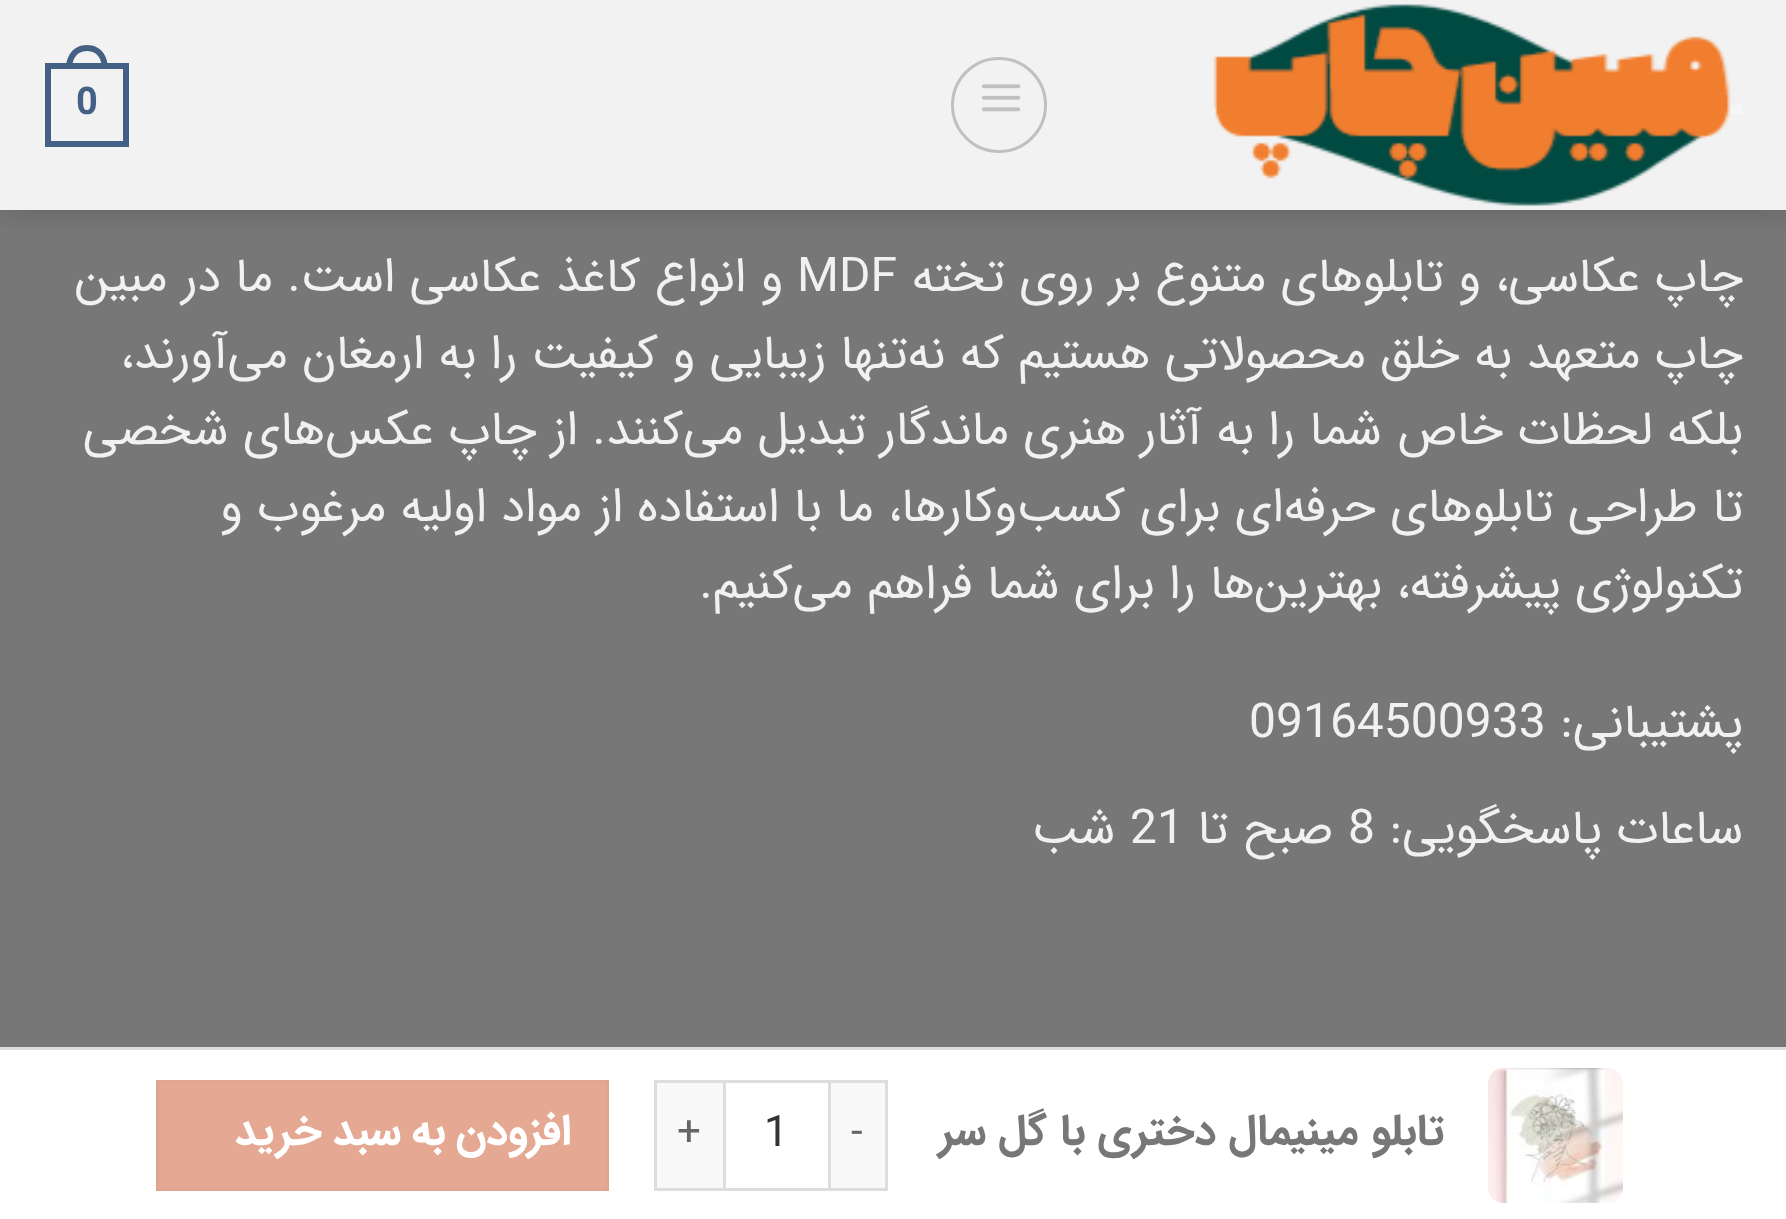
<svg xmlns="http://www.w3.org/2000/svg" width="1786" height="1219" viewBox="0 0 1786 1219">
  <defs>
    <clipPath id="clip1"><path d="M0 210h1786v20H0z"/></clipPath>
  </defs>
  <rect width="100%" height="100%" fill="#777"/>
  <path d="M1724 105h19v9H1724z" fill="#a0a0a0"/>
  <g clip-path="url(#clip1)">
    <path d="M3 3h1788v210H3z" fill="#00000026" filter="blur(15px)"/>
  </g>
  <path d="M0 0h1786v210H0z" fill="#ffffffe6"/>
  <image x="1213" y="4" width="518" height="202" href="img/1.png"/>
  <circle cx="999" cy="105" r="46.5" fill="none" stroke="#c0c0c0" stroke-width="3"/>
  <image x="981" y="84" width="40" height="28" href="img/2.png"/>
  <path d="M48 66h78v78H48z" fill="none" stroke="#446084" stroke-width="6"/>
  <path d="M87 45C101 45 108 56 108 69H66C66 56 73 45 87 45ZM87 51C98 51 102 60 102 69H72C72 60 76 51 87 51Z" fill="#446084" fill-rule="evenodd"/>
  <path d="M0 1050h1786v169H0z" fill="#fff"/>
  <path d="M0 1047h1786v3H0z" fill="#ddd"/>
  <image x="1488" y="1068" width="135" height="135" href="img/3.png"/>
  <path d="M831 1083h54v105H831z" fill="#f9f9f9"/>
  <path d="M831 1080h57v3H831z" fill="#ddd"/>
  <path d="M885 1080h3v111H885z" fill="#ddd"/>
  <path d="M831 1188h57v3H831z" fill="#ddd"/>
  <path d="M724.5 1081.5h105v108H724.5z" fill="none" stroke="#ddd" stroke-width="3"/>
  <path d="M657 1083h66v105H657z" fill="#f9f9f9"/>
  <path d="M654 1080h69v3H654z" fill="#ddd"/>
  <path d="M654 1188h69v3H654z" fill="#ddd"/>
  <path d="M654 1080h3v111H654z" fill="#ddd"/>
  <path d="M157.5 1081.5h450v108H157.5z" fill="#e4a893" stroke="#dea591" stroke-width="3"/>
  <text x="76" y="114" font-family="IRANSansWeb" font-size="38" font-weight="bold" fill="#446084">0</text>
  <text x="1743" y="291" font-family="IRANSansWeb" font-size="48" direction="rtl" fill="#f1f1f1">چاپ عکاسی، و تابلوهای متنوع بر روی تخته</text>
  <text x="797" y="291" font-family="IRANSansWeb" font-size="48" fill="#f1f1f1">MDF</text>
  <g font-family="IRANSansWeb" font-size="48" direction="rtl" fill="#f1f1f1">
    <text x="783" y="291">و انواع کاغذ عکاسی است. ما در مبین</text>
    <text x="1743" y="368">چاپ متعهد به خلق محصولاتی هستیم که نه‌تنها زیبایی و کیفیت را به ارمغان می‌آورند،</text>
    <text x="1743" y="444">بلکه لحظات خاص شما را به آثار هنری ماندگار تبدیل می‌کنند. از چاپ عکس‌های شخصی</text>
    <text x="1743" y="521">تا طراحی تابلوهای حرفه‌ای برای کسب‌وکارها، ما با استفاده از مواد اولیه مرغوب و</text>
    <text x="1743" y="598">تکنولوژی پیشرفته، بهترین‌ها را برای شما فراهم می‌کنیم.</text>
    <text x="1743" y="737">پشتیبانی:</text>
  </g>
  <text x="1249" y="737" font-family="IRANSansWeb" font-size="48" fill="#f1f1f1">09164500933</text>
  <text x="1743" y="843" font-family="IRANSansWeb" font-size="48" direction="rtl" fill="#f1f1f1">ساعات پاسخگویی:</text>
  <text x="1348" y="843" font-family="IRANSansWeb" font-size="48" fill="#f1f1f1">8</text>
  <text x="1333" y="843" font-family="IRANSansWeb" font-size="48" direction="rtl" fill="#f1f1f1">صبح تا</text>
  <text x="1130" y="843" font-family="IRANSansWeb" font-size="48" fill="#f1f1f1">21</text>
  <text x="1115" y="843" font-family="IRANSansWeb" font-size="48" direction="rtl" fill="#f1f1f1">شب</text>
  <text x="1444" y="1144" font-family="IRANSansWeb" font-size="43.25" font-weight="bold" direction="rtl" fill="#777">تابلو مینیمال دختری با گل سر</text>
  <text x="851" y="1145" font-family="IRANSansWeb" font-size="42" letter-spacing="1" fill="#666">-</text>
  <text x="764" y="1146" font-family="IRANSansWeb" font-size="43.25" fill="#333">1</text>
  <text x="677" y="1145" font-family="IRANSansWeb" font-size="42" letter-spacing="1" fill="#666">+</text>
  <text x="571" y="1144" word-spacing="-2.5" font-family="IRANSansWeb" font-size="43.25" font-weight="bold" letter-spacing="1.25" direction="rtl" fill="#fff">افزودن به سبد خرید</text>
</svg>
